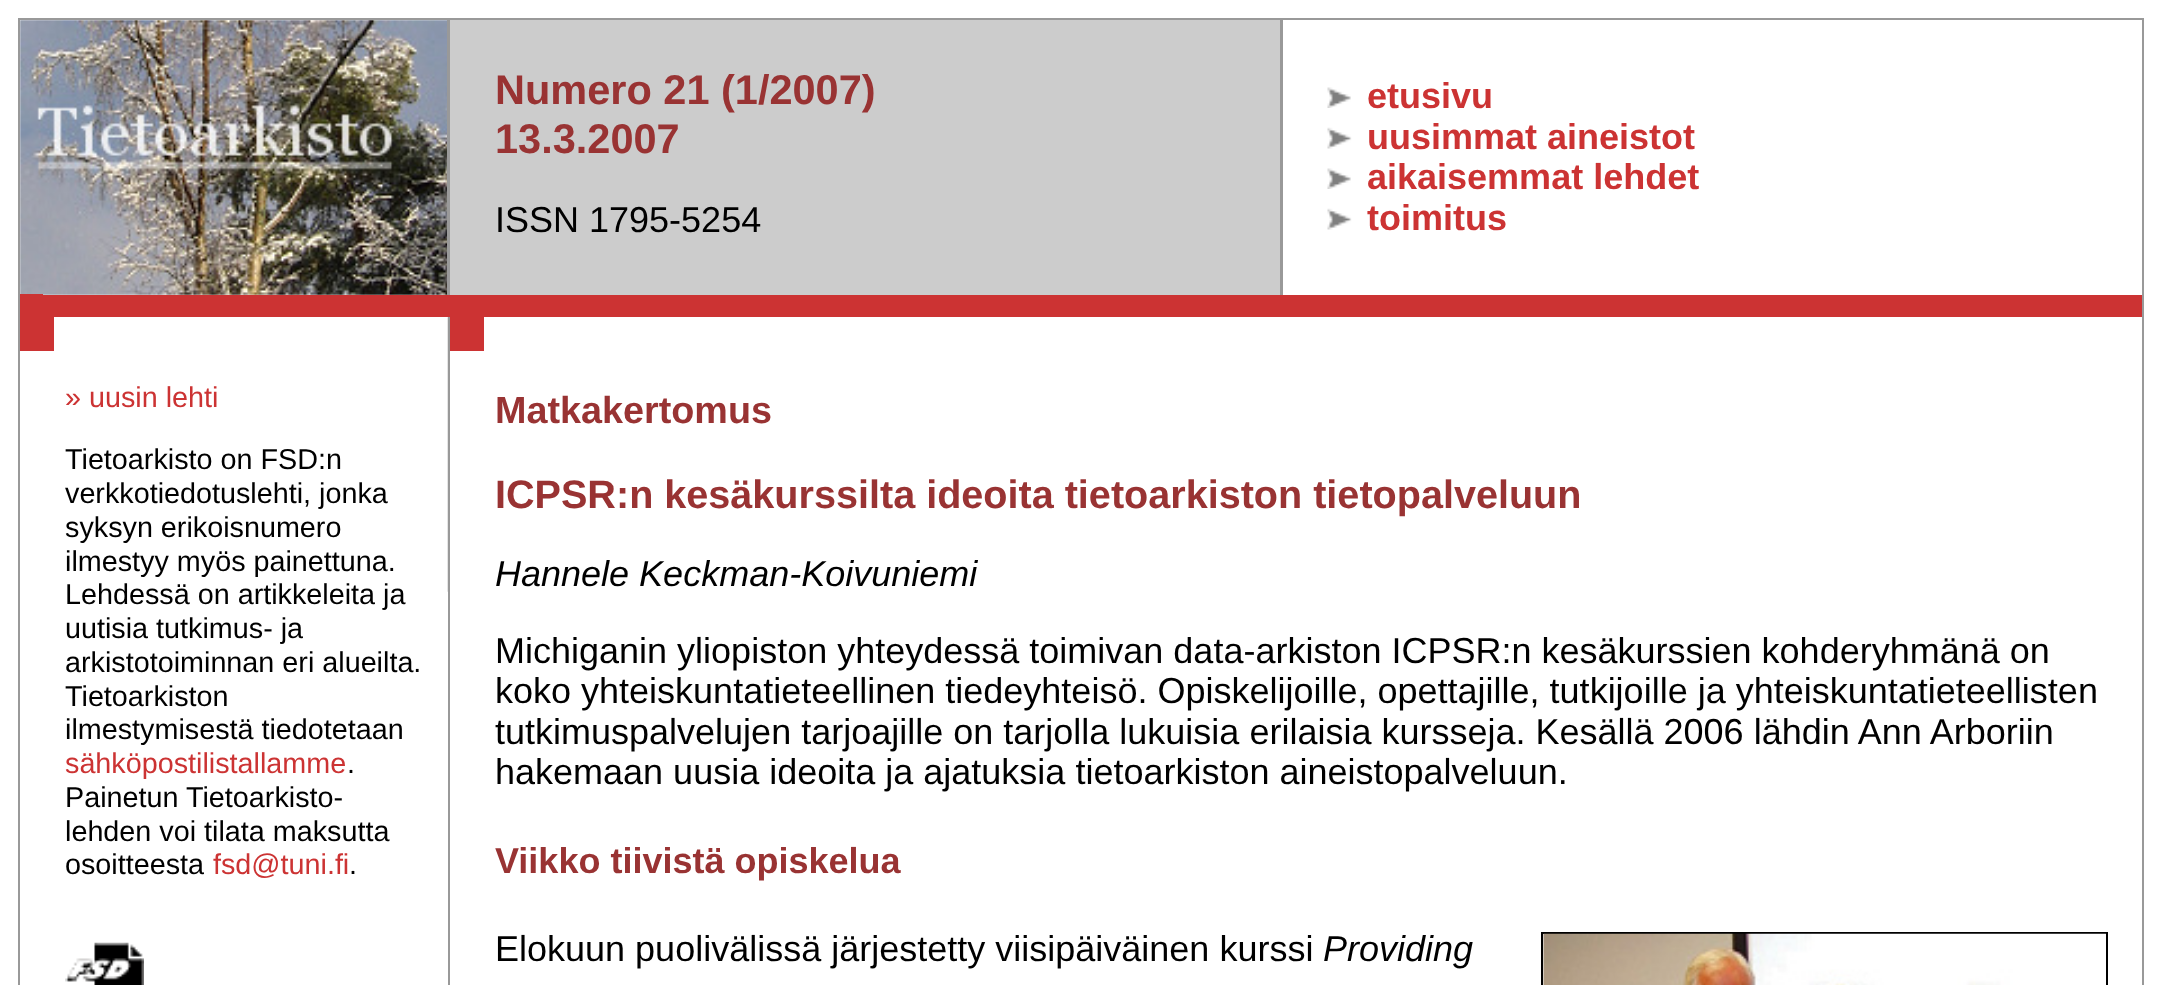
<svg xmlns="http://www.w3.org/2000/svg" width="2161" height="985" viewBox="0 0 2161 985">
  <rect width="100%" height="100%" fill="#fff"/>
  <path d="M18 18h2126v967H18z" fill="#999"/>
  <path d="M20 20h2122v275H20z" fill="#fff"/>
  <image x="20" y="20" width="427" height="275" href="img/1.png"/>
  <path d="M447 20h3v275H447z" fill="#999"/>
  <path d="M450 20h830v275H450z" fill="#ccc"/>
  <path d="M1280 20h3v275H1280z" fill="#999"/>
  <image x="1327" y="87" width="24" height="21" href="img/2.png"/>
  <image x="1327" y="127" width="25" height="22" href="img/3.png"/>
  <image x="1327" y="168" width="24" height="21" href="img/2.png"/>
  <image x="1327" y="208" width="25" height="22" href="img/3.png"/>
  <path d="M43 295h2099v22H43z" fill="#c33"/>
  <path d="M20 294h23v23H20z" fill="#c33"/>
  <path d="M20 317h2122v668H20z" fill="#fff"/>
  <path d="M20 317h34v34H20z" fill="#c33"/>
  <image x="65" y="942" width="79" height="43" href="img/4.png"/>
  <path d="M448 317h2v668H448z" fill="#999"/>
  <image x="447" y="317" width="1" height="275" href="img/5.png"/>
  <path d="M450 317h34v34H450z" fill="#c33"/>
  <path d="M1542 933h565v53H1542z" fill="none" stroke="#000" stroke-width="2"/>
  <image x="1543" y="933" width="563" height="52" href="img/6.png"/>
  <g font-family="Liberation Sans" font-size="41.5" font-weight="bold" fill="#933">
    <text x="495" y="104">Numero 21 (1/2007)</text>
    <text x="495" y="153">13.3.2007</text>
  </g>
  <text x="495" y="232" font-family="Liberation Sans" font-size="36" fill="#000">ISSN 1795-5254</text>
  <g font-family="Liberation Sans" font-size="36" font-weight="bold" fill="#c33">
    <text x="1367" y="108">etusivu</text>
    <text x="1367" y="149">uusimmat aineistot</text>
    <text x="1367" y="189">aikaisemmat lehdet</text>
    <text x="1367" y="230">toimitus</text>
  </g>
  <text x="65" y="407" font-family="Liberation Sans" font-size="28.75" fill="#c33">» uusin lehti</text>
  <g font-family="Liberation Sans" font-size="28.75" fill="#000">
    <text x="65" y="469">Tietoarkisto on FSD:n</text>
    <text x="65" y="503">verkkotiedotuslehti, jonka</text>
    <text x="65" y="537">syksyn erikoisnumero</text>
    <text x="65" y="571">ilmestyy myös painettuna.</text>
    <text x="65" y="604">Lehdessä on artikkeleita ja</text>
    <text x="65" y="638">uutisia tutkimus- ja</text>
    <text x="65" y="672">arkistotoiminnan eri alueilta.</text>
    <text x="65" y="706">Tietoarkiston</text>
    <text x="65" y="739">ilmestymisestä tiedotetaan</text>
  </g>
  <text x="65" y="773" font-family="Liberation Sans" font-size="28.75" fill="#c33">sähköpostilistallamme</text>
  <g font-family="Liberation Sans" font-size="28.75" fill="#000">
    <text x="347" y="773">.</text>
    <text x="65" y="807">Painetun Tietoarkisto-</text>
    <text x="65" y="841">lehden voi tilata maksutta</text>
    <text x="65" y="874">osoitteesta</text>
  </g>
  <text x="213" y="874" font-family="Liberation Sans" font-size="28.75" fill="#c33">fsd@tuni.fi</text>
  <text x="349" y="874" font-family="Liberation Sans" font-size="28.75" fill="#000">.</text>
  <text x="495" y="423" font-family="Liberation Sans" font-size="37.75" font-weight="bold" fill="#933">Matkakertomus</text>
  <text x="495" y="508" font-family="Liberation Sans" font-size="39.6" font-weight="bold" fill="#933">ICPSR:n kesäkurssilta ideoita tietoarkiston tietopalveluun</text>
  <text x="495" y="586" font-family="Liberation Sans" font-size="36" font-style="italic" fill="#000">Hannele Keckman-Koivuniemi</text>
  <g font-family="Liberation Sans" font-size="36" fill="#000">
    <text x="495" y="663">Michiganin yliopiston yhteydessä toimivan data-arkiston ICPSR:n kesäkurssien kohderyhmänä on</text>
    <text x="495" y="703">koko yhteiskuntatieteellinen tiedeyhteisö. Opiskelijoille, opettajille, tutkijoille ja yhteiskuntatieteellisten</text>
    <text x="495" y="744">tutkimuspalvelujen tarjoajille on tarjolla lukuisia erilaisia kursseja. Kesällä 2006 lähdin Ann Arboriin</text>
    <text x="495" y="784">hakemaan uusia ideoita ja ajatuksia tietoarkiston aineistopalveluun.</text>
  </g>
  <text x="495" y="873" font-family="Liberation Sans" font-size="36" font-weight="bold" fill="#933">Viikko tiivistä opiskelua</text>
  <text x="495" y="961" font-family="Liberation Sans" font-size="36" fill="#000">Elokuun puolivälissä järjestetty viisipäiväinen kurssi</text>
  <text x="1323" y="961" font-family="Liberation Sans" font-size="36" font-style="italic" fill="#000">Providing</text>
</svg>
